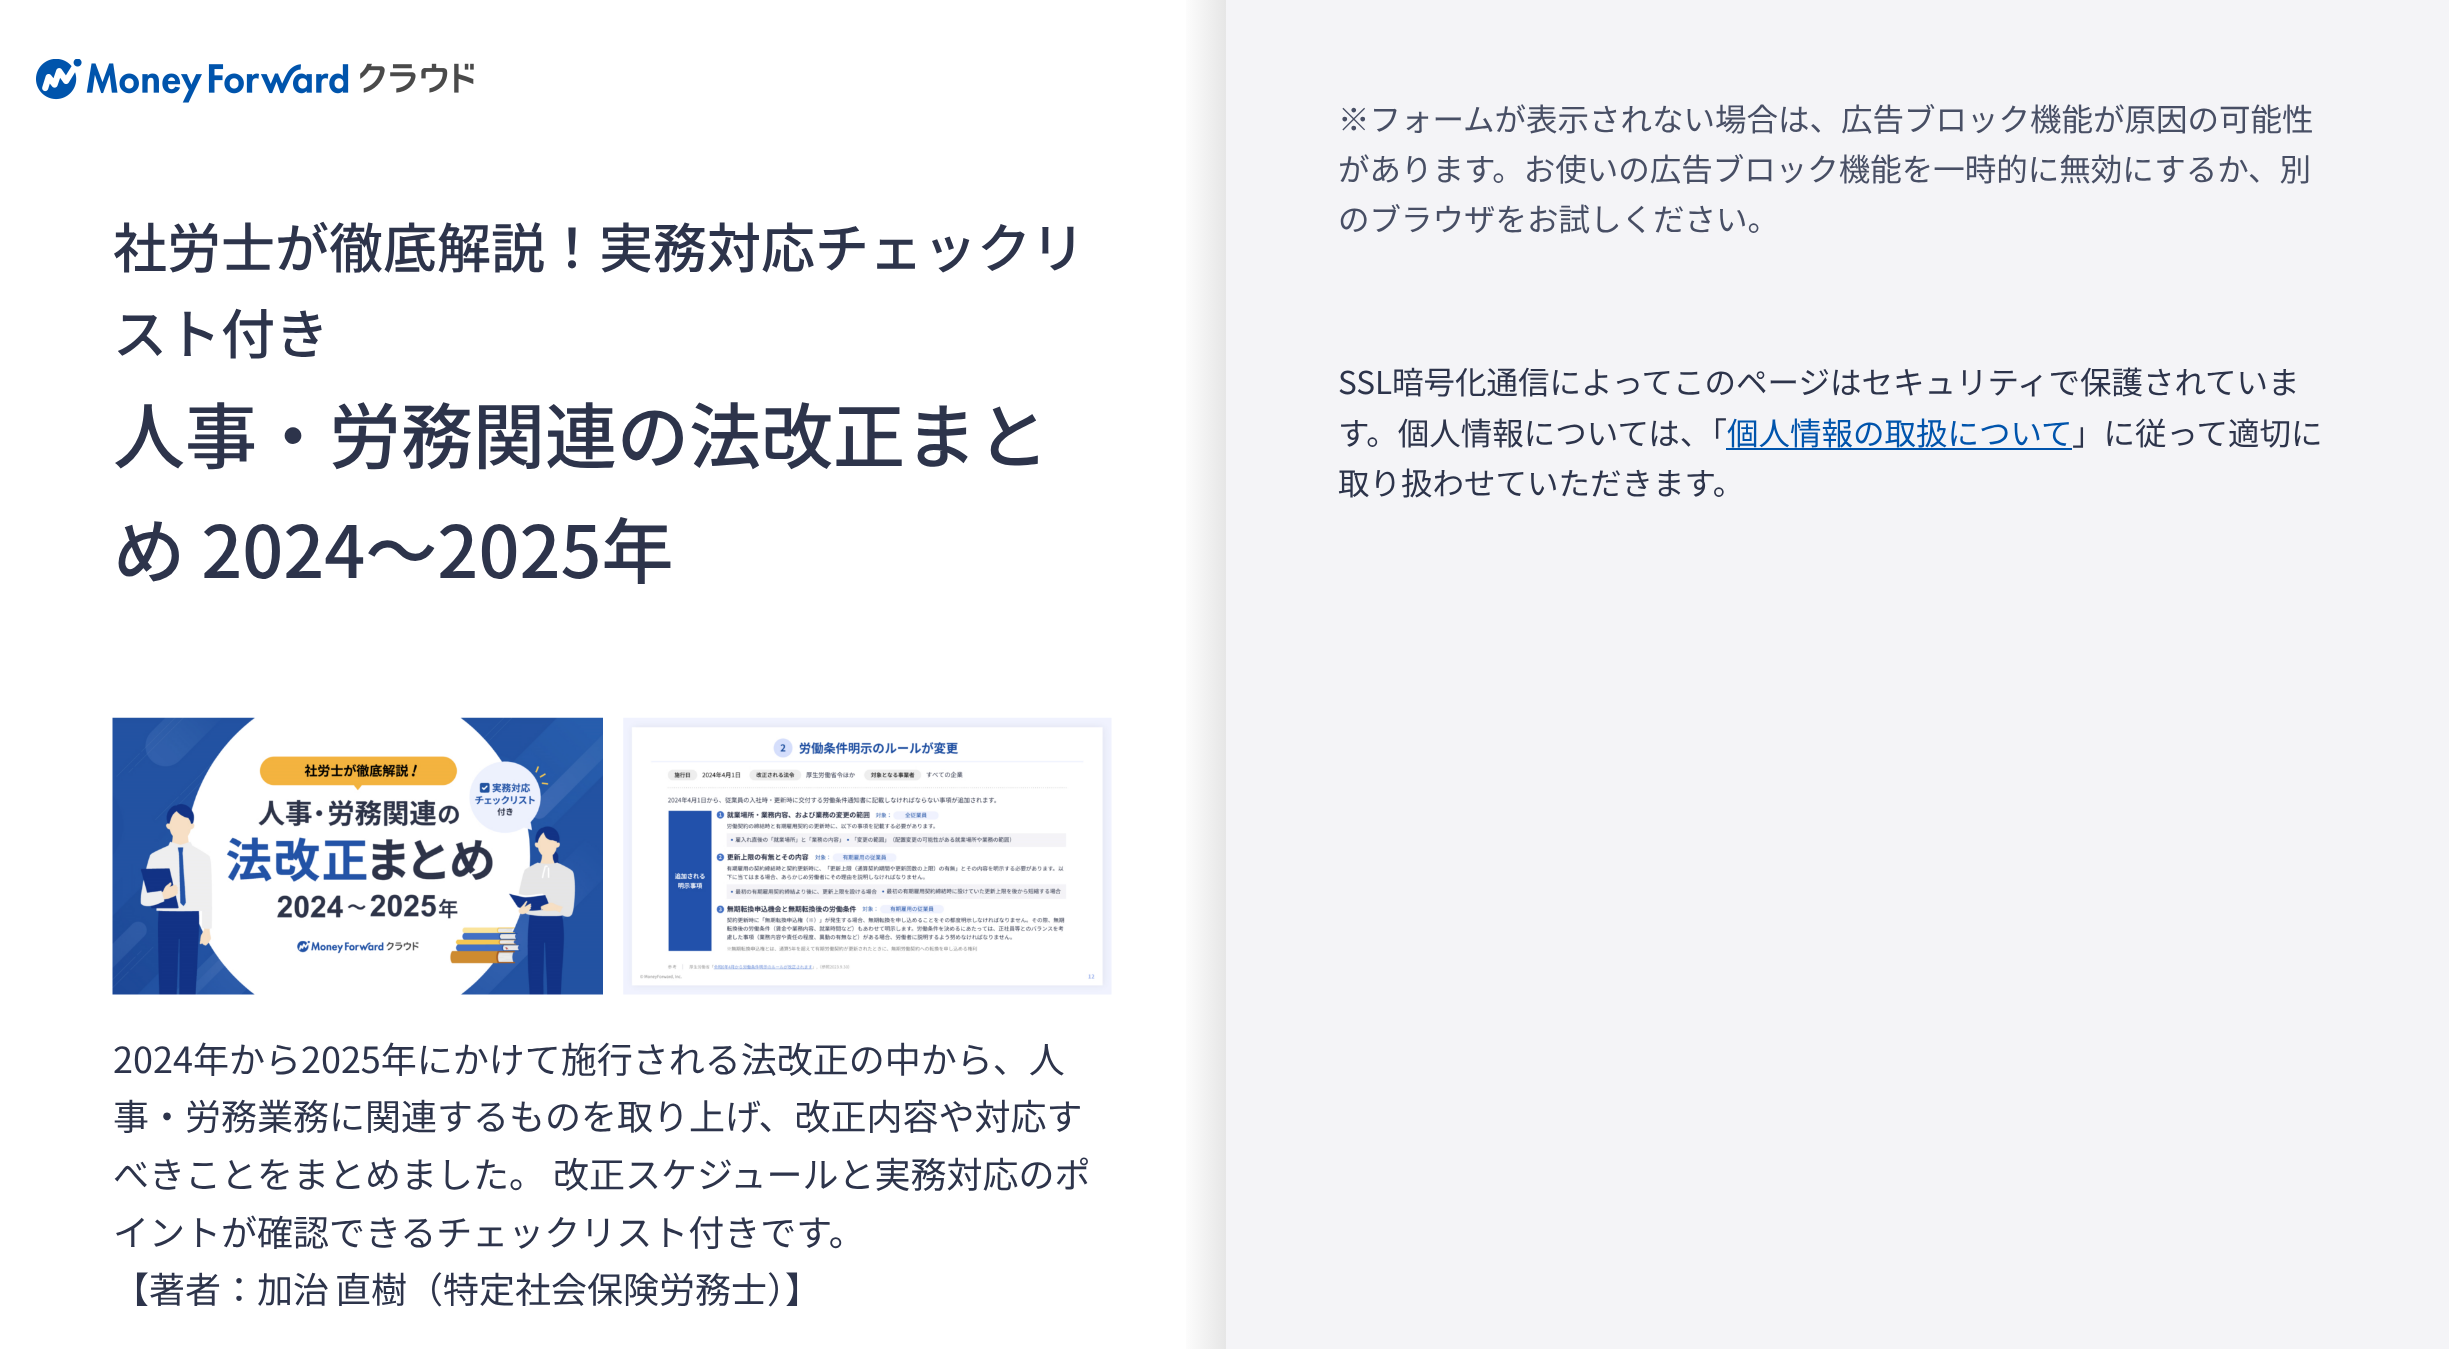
<svg xmlns="http://www.w3.org/2000/svg" width="2449" height="1349" viewBox="0 0 2449 1349">
  <defs>
    <linearGradient id="g1" gradientUnits="userSpaceOnUse" x1="1181" y1="1095" x2="1226" y2="1095"><stop offset="0" stop-color="#fff"/><stop offset="1" stop-color="#e6e6e6"/></linearGradient>
  </defs>
  <rect width="100%" height="100%" fill="#fff"/>
  <image x="36" y="59" width="438" height="44" href="img/1.png"/>
  <image x="112" y="717" width="491" height="278" href="img/2.png"/>
  <image x="623" y="717" width="489" height="278" href="img/3.png"/>
  <path d="M1186 0h40v1349H1186z" fill="url(#g1)"/>
  <path d="M1226 0h1223v1349H1226z" fill="#f4f4f7"/>
  <path d="M1726 448h346v2H1726z" fill="#0054ac"/>
  <g font-family="Noto Sans JP" font-size="54" font-weight="500" fill="#2d344b">
    <text x="113" y="268">社労士が徹底解説！実務対応チェックリ</text>
    <text x="113" y="354">スト付き</text>
  </g>
  <g font-family="Noto Sans JP" font-size="72" font-weight="500" fill="#2d344b">
    <text x="113" y="463">人事・労務関連の法改正まと</text>
    <text x="113" y="578">め 2024～2025年</text>
  </g>
  <g font-family="Noto Sans JP" font-size="36" fill="#2d344b">
    <text x="113" y="1073">2024年から2025年にかけて施⾏される法改正の中から、⼈</text>
    <text x="113" y="1130">事・労務業務に関連するものを取り上げ、改正内容や対応す</text>
    <text x="113" y="1188">べきことをまとめました。 改正スケジュールと実務対応のポ</text>
    <text x="113" y="1246">イントが確認できるチェックリスト付きです。</text>
    <text x="113" y="1303" word-spacing="-2">【著者：加治 直樹（特定社会保険労務士）】</text>
  </g>
  <g font-family="Noto Sans JP" font-size="31.5" fill="#484f65">
    <text x="1338" y="131">※フォームが表示されない場合は、広告ブロック機能が原因の可能性</text>
    <text x="1338" y="181">があります。お使いの広告ブロック機能を一時的に無効にするか、別</text>
    <text x="1338" y="231">のブラウザをお試しください。</text>
  </g>
  <g font-family="Noto Sans JP" font-size="31.5" fill="#2d344b">
    <text x="1338" y="394">SSL暗号化通信によってこのページはセキュリティで保護されていま</text>
    <text x="1338" y="445">す。個人情報については、「</text>
  </g>
  <text x="1727" y="445" font-family="Noto Sans JP" font-size="31.5" fill="#0054ac">個人情報の取扱について</text>
  <g font-family="Noto Sans JP" font-size="31.5" fill="#2d344b">
    <text x="2072" y="445">」に従って適切に</text>
    <text x="1338" y="495">取り扱わせていただきます。</text>
  </g>
</svg>
